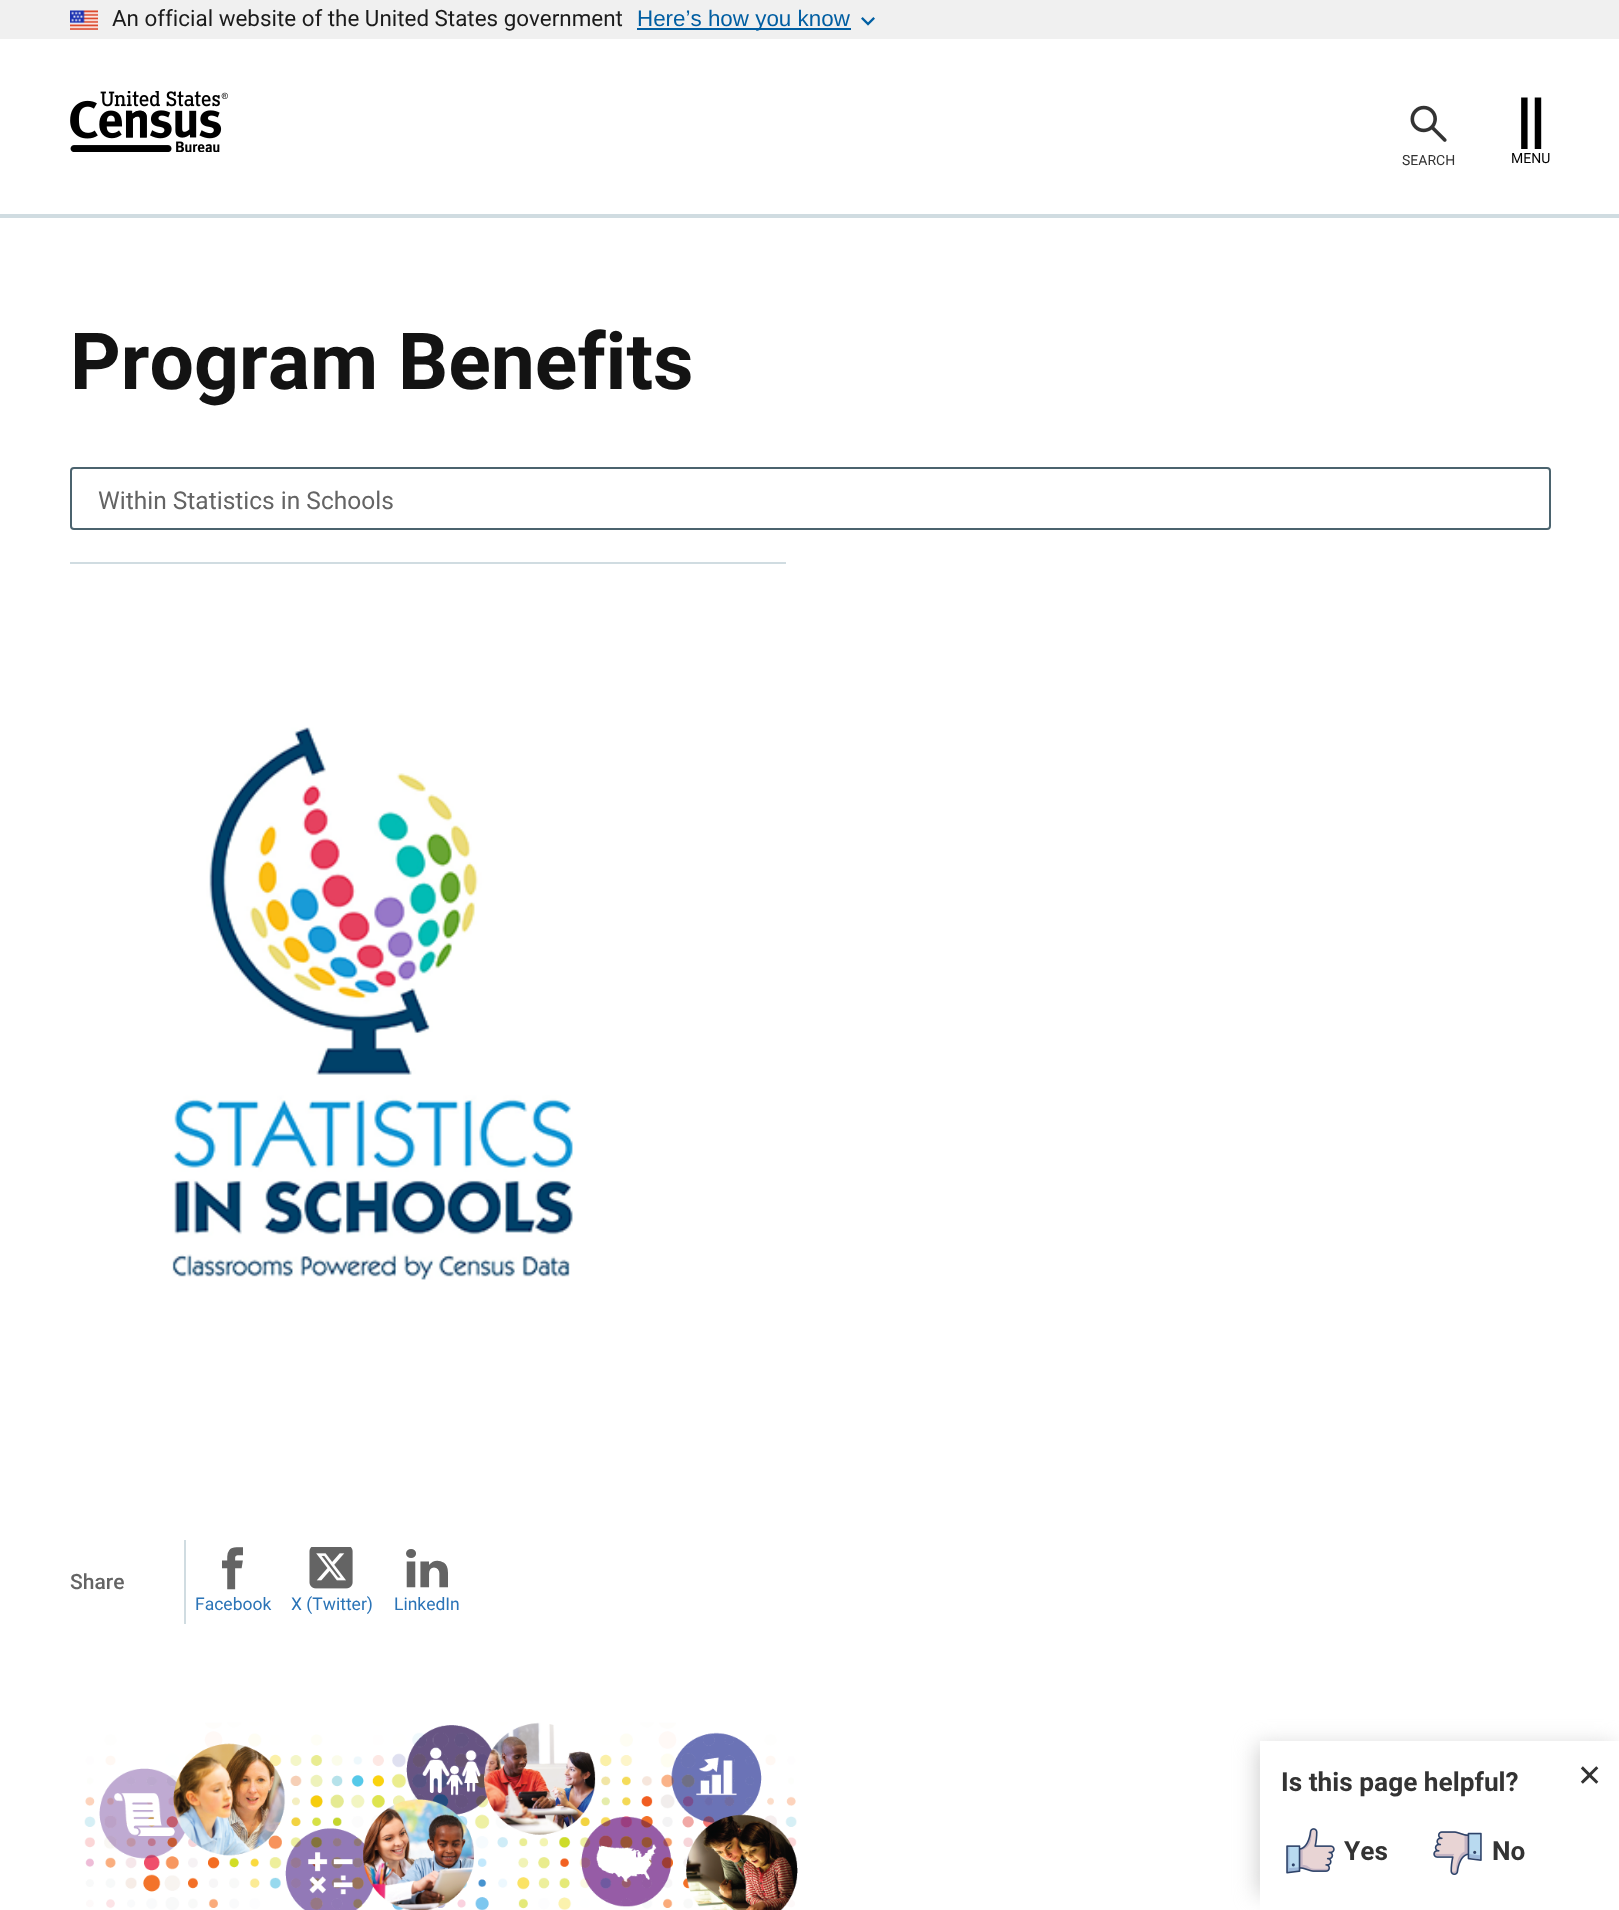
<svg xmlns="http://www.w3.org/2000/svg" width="1619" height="1910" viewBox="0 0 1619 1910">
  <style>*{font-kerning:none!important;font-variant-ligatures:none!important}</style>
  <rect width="100%" height="100%" fill="#fff"/>
  <path d="M0 0h1619v39H0z" fill="#f0f0f0"/>
  <image x="70" y="10" width="28" height="20" href="img/1.png"/>
  <path d="M637 28h214v2H637z" fill="#005ea2"/>
  <image x="861" y="17" width="14" height="9" href="img/2.png"/>
  <image x="70" y="91" width="158" height="61" href="img/3.png"/>
  <image x="1410" y="105" width="37" height="37" href="img/4.png"/>
  <path d="M0 214h1619v4H0z" fill="#d0dce1"/>
  <rect x="71" y="468" width="1479" height="61" rx="3" fill="none" stroke="#4b636e" stroke-width="2"/>
  <path d="M70 562h716v2H70z" fill="#d0dce1"/>
  <image x="172" y="727" width="401" height="553" href="img/5.png"/>
  <path d="M184 1540h2v84H184z" fill="#d0dce1"/>
  <image x="309" y="1547" width="44" height="42" href="img/6.png"/>
  <image x="84" y="1722" width="714" height="188" href="img/7.png"/>
  <path d="M1257 1745h357v150H1257z" fill="#d1d1d1" filter="blur(10.5px)"/>
  <path d="M1260 1741h359v169H1260z" fill="#fff"/>
  <image x="1286" y="1828" width="49" height="46" href="img/8.png"/>
  <image x="1433" y="1831" width="49" height="44" href="img/9.png"/>
  <text x="112" y="26" font-family="Roboto" font-size="22.4" fill="#1b1b1b">An official website of the United States government</text>
  <text x="637" y="26" font-family="Liberation Sans" font-size="22.4" fill="#005ea2">Here’s how you know</text>
  <text x="1402" y="165" font-family="Roboto" font-size="14" fill="#333">SEARCH</text>
  <text x="1515" y="149" font-family="Noto Sans Pau Cin Hau" font-size="72" fill="#000">𑫨</text>
  <text x="1511" y="163" font-family="Roboto" font-size="14" fill="#000">MENU</text>
  <text x="70" y="389" font-family="Roboto" font-size="78.75" font-weight="bold" fill="#131313">Program Benefits</text>
  <text x="98" y="509" font-family="Roboto" font-size="24.5" fill="#646464">Within Statistics in Schools</text>
  <text x="70" y="1589" font-family="Roboto" font-size="21" font-weight="500" fill="#646464">Share</text>
  <text x="222" y="1584" font-family="'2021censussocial'" font-size="42" fill="#646464">﫠</text>
  <g font-family="Roboto" font-size="17.5" fill="#2b74b7">
    <text x="195" y="1610">Facebook</text>
    <text x="291" y="1610">X (Twitter)</text>
  </g>
  <text x="406" y="1584" font-family="'2021censussocial'" font-size="42" fill="#646464">﫦</text>
  <text x="394" y="1610" font-family="Roboto" font-size="17.5" fill="#2b74b7">LinkedIn</text>
  <g font-family="Roboto" font-size="26.25" font-weight="bold" fill="#333">
    <text x="1281" y="1791">Is this page helpful?</text>
    <text x="1344" y="1860">Yes</text>
    <text x="1492" y="1860">No</text>
  </g>
  <text x="1577" y="1786" font-family="DejaVu Sans" font-size="30" fill="#333">✕</text>
</svg>
